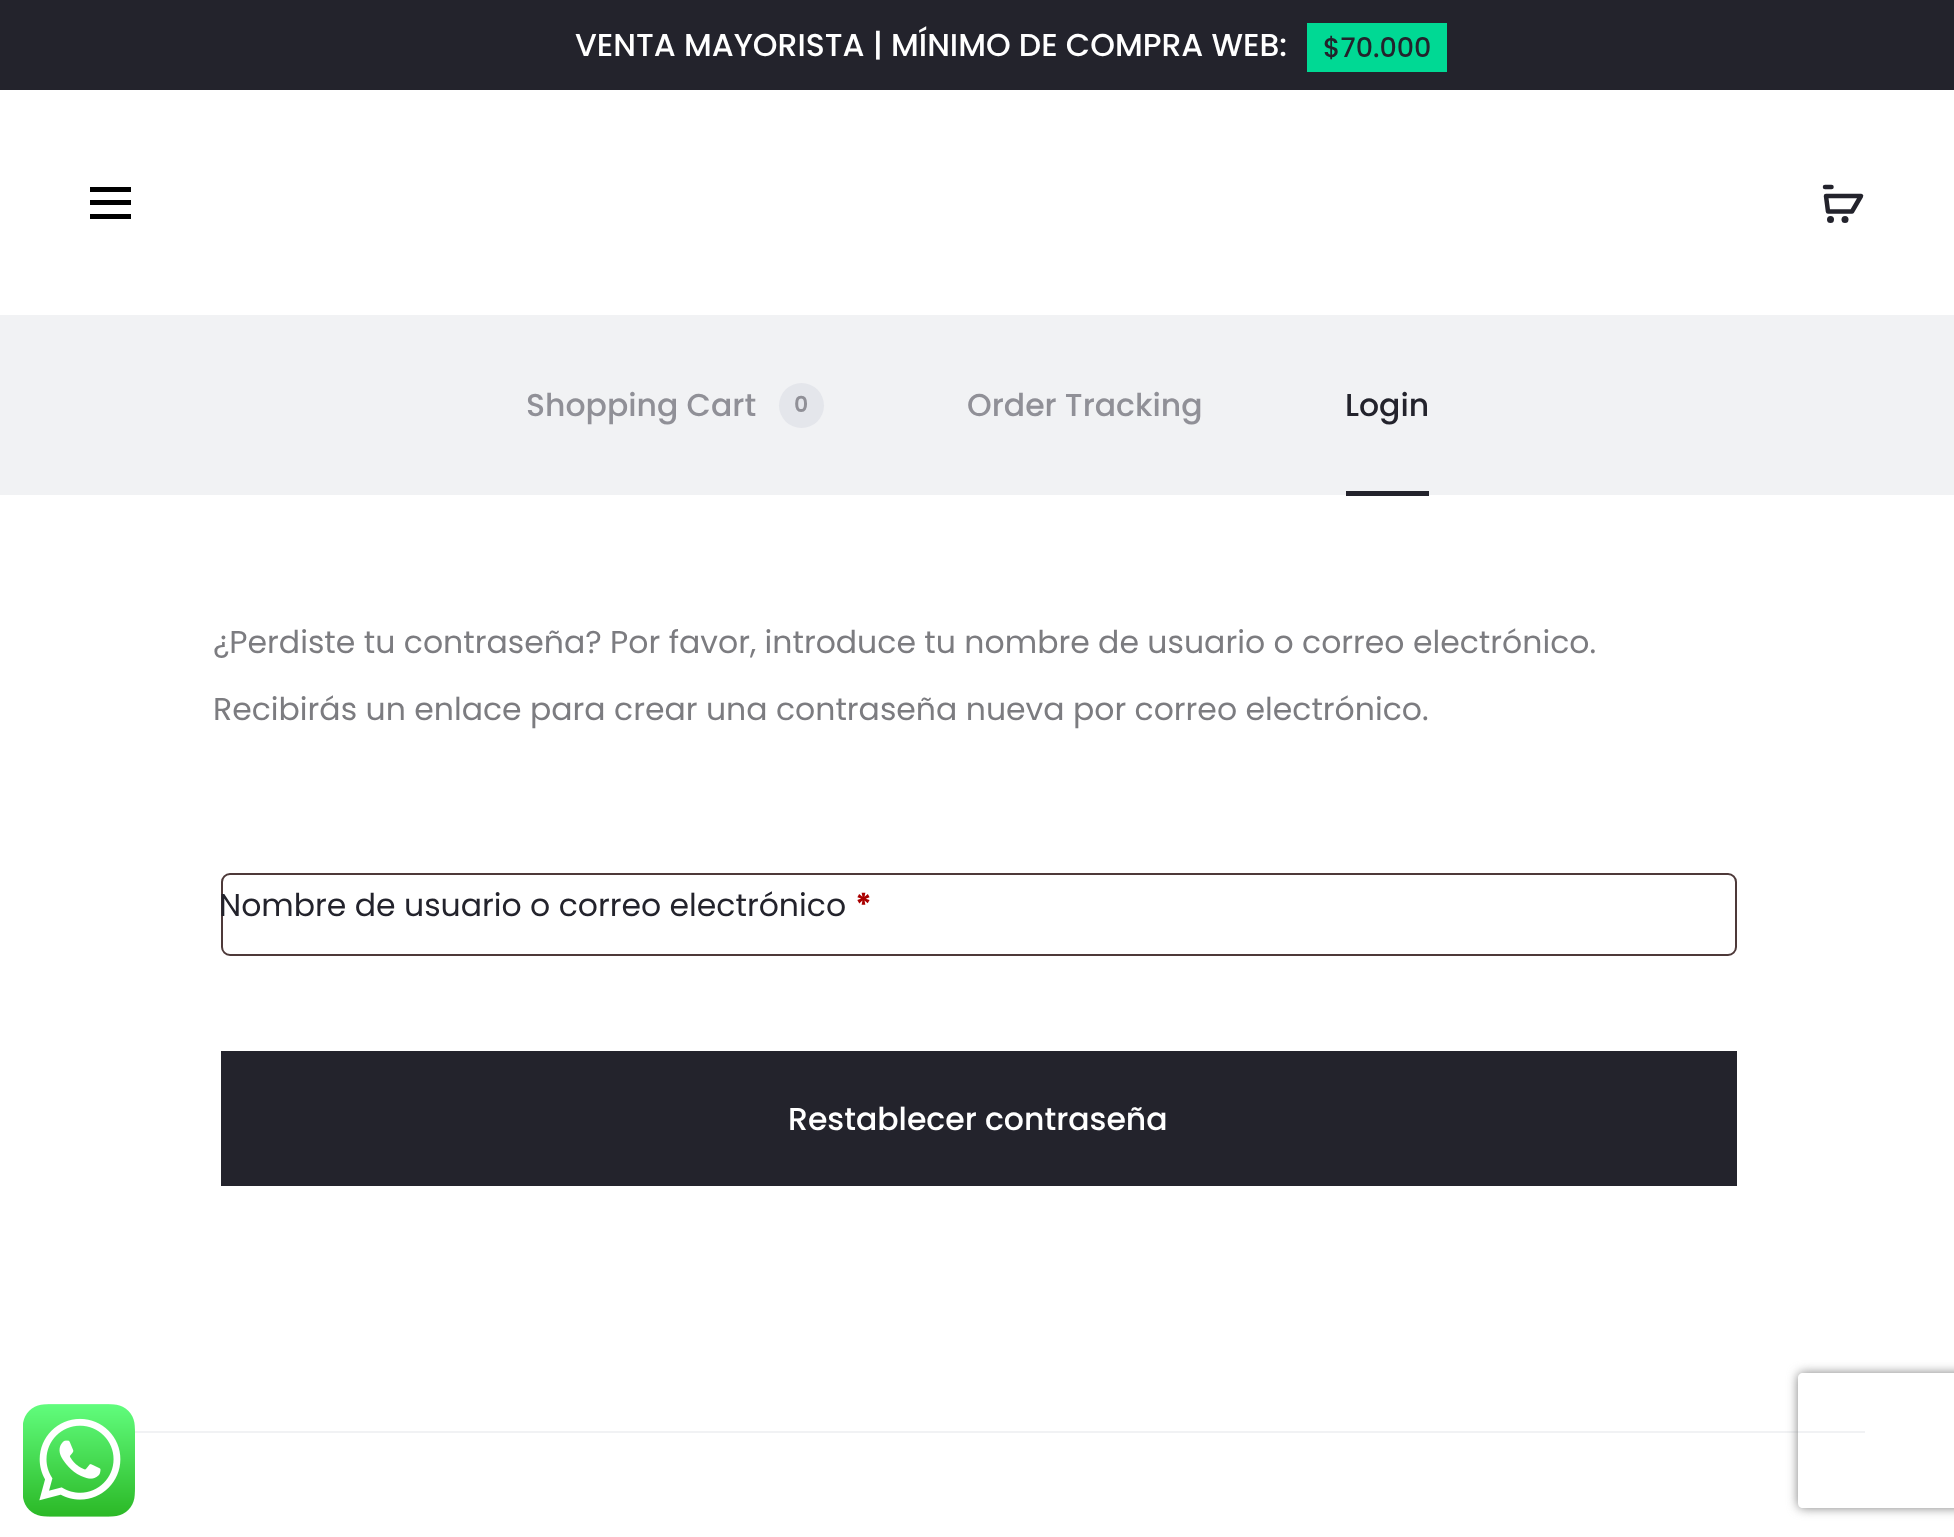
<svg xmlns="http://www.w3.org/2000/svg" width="1954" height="1537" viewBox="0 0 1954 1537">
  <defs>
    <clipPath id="clip1"><path d="M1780 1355H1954V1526H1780ZM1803 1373H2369C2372 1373 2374 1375 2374 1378V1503C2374 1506 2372 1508 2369 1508H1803C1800 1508 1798 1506 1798 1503V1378C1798 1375 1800 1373 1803 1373Z" clip-rule="evenodd"/></clipPath>
  </defs>
  <rect width="100%" height="100%" fill="#fff"/>
  <path d="M0 0h1954v90H0z" fill="#23232c"/>
  <path d="M1307 23h140v49H1307z" fill="#00d994"/>
  <path d="M90 200h41v5H90z" fill="#000"/>
  <path d="M90 187h41v5H90z" fill="#000"/>
  <path d="M90 214h41v5H90z" fill="#000"/>
  <path d="M1826 196L1828 211.5H1852L1861 196Z" fill="none" stroke="#23232c" stroke-width="4.5" stroke-linejoin="round"/>
  <circle cx="1830.5" cy="219.5" r="3.5" fill="#23232c"/>
  <circle cx="1845" cy="219.5" r="3.5" fill="#23232c"/>
  <path d="M1825 187H1831.5" fill="none" stroke="#23232c" stroke-width="4.5" stroke-linecap="round"/>
  <path d="M0 315h1954v180H0z" fill="#f1f2f4"/>
  <circle cx="801.5" cy="405.5" r="22.5" fill="#e4e6eb"/>
  <path d="M1346 491h83v5H1346z" fill="#23232c"/>
  <rect x="222" y="874" width="1514" height="81" rx="8" fill="none" stroke="#4d3939" stroke-width="2"/>
  <path d="M221 1051h1516v135H221z" fill="#23232c"/>
  <path d="M134 1431h1731v2H134z" fill="#f1f2f4"/>
  <image x="23" y="1404" width="112" height="113" href="img/1.png"/>
  <g clip-path="url(#clip1)">
    <rect x="1798" y="1373" width="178" height="135" rx="5" fill="#808080" filter="blur(5.5px)"/>
  </g>
  <text x="575" y="56" font-family="Poppins" font-size="31.5" font-weight="500" fill="#fff">VENTA MAYORISTA | MÍNIMO DE COMPRA WEB:</text>
  <text x="1323" y="57" font-family="Poppins" font-size="27" font-weight="500" fill="#23232c">$70.000</text>
  <text x="526" y="416" font-family="Poppins" font-size="31.5" font-weight="500" fill="#909097">Shopping Cart</text>
  <text x="794" y="412" font-family="Poppins" font-size="22" font-weight="600" fill="#909097">0</text>
  <text x="967" y="416" font-family="Poppins" font-size="31.5" font-weight="500" fill="#909097">Order Tracking</text>
  <text x="1345" y="416" font-family="Poppins" font-size="31.5" font-weight="500" fill="#23232c">Login</text>
  <g font-family="Poppins" font-size="31.5" fill="#7c7c80">
    <text x="213" y="653">¿Perdiste tu contraseña? Por favor, introduce tu nombre de usuario o correo electrónico.</text>
    <text x="213" y="720">Recibirás un enlace para crear una contraseña nueva por correo electrónico.</text>
  </g>
  <text x="219" y="916" font-family="Poppins" font-size="31.5" fill="#23232c">Nombre de usuario o correo electrónico</text>
  <text x="855" y="916" font-family="Poppins" font-size="31.5" font-weight="bold" fill="#a00">*</text>
  <text x="788" y="1130" font-family="Poppins" font-size="31.5" font-weight="500" fill="#fff">Restablecer contraseña</text>
</svg>
